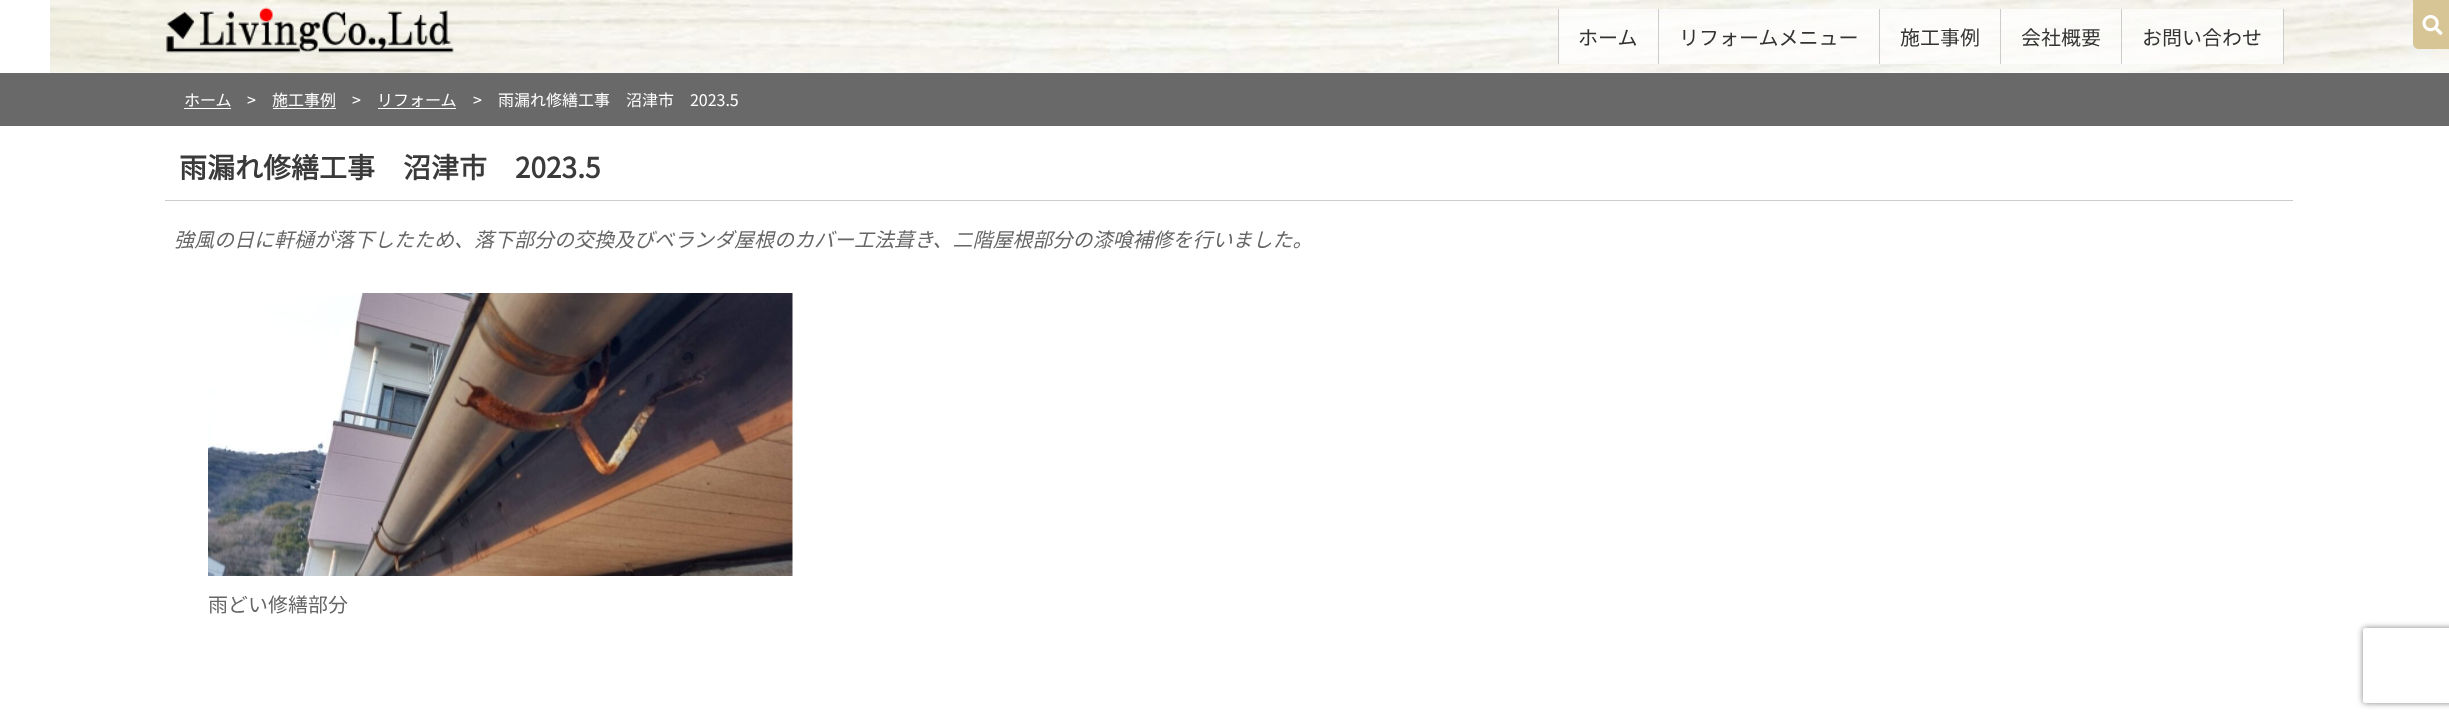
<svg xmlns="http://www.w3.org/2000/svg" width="2449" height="720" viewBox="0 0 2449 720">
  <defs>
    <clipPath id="clip1"><path d="M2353 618H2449V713H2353ZM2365.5 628H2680.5C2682 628 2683 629 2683 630.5V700.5C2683 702 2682 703 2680.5 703H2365.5C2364 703 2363 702 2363 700.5V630.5C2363 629 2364 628 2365.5 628Z" clip-rule="evenodd"/></clipPath>
  </defs>
  <rect width="100%" height="100%" fill="#fff"/>
  <image x="50" y="0" width="2399" height="73" href="img/1.png"/>
  <image x="166" y="7" width="288" height="46" href="img/2.png"/>
  <path d="M1559 9h99v55H1559z" fill="#ffffffb3"/>
  <path d="M1658 9h1v55H1658z" fill="#ccc"/>
  <path d="M1558 9h1v55H1558z" fill="#ccc"/>
  <path d="M1659 9h220v55H1659z" fill="#ffffffb3"/>
  <path d="M1879 9h1v55H1879z" fill="#ccc"/>
  <path d="M1880 9h120v55H1880z" fill="#ffffffb3"/>
  <path d="M2000 9h1v55H2000z" fill="#ccc"/>
  <path d="M2001 9h122v55H2001z" fill="#ffffffb3"/>
  <path d="M2121 9h1v55H2121z" fill="#ccc"/>
  <path d="M2123 9h160v55H2123z" fill="#ffffffb3"/>
  <path d="M2283 9h1v55H2283z" fill="#ccc"/>
  <path d="M2413 0H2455V43C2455 46.5 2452.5 49 2449 49H2419C2415.5 49 2413 46.5 2413 43Z" fill="#d8c595"/>
  <image x="2422" y="15" width="21" height="20" href="img/3.png"/>
  <path d="M0 73h2449v53H0z" fill="#696969"/>
  <path d="M184 108h47v1H184z" fill="#fff"/>
  <path d="M273 108h63v1H273z" fill="#fff"/>
  <path d="M378 108h78v1H378z" fill="#fff"/>
  <path d="M165 200h2128v1H165z" fill="#ccc"/>
  <image x="208" y="293" width="585" height="283" href="img/4.png"/>
  <g clip-path="url(#clip1)">
    <rect x="2363" y="628" width="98" height="75" rx="2.5" fill="#808080" filter="blur(3px)"/>
  </g>
  <g font-family="Noto Sans JP" font-size="20" fill="#333">
    <text x="1578" y="45">ホーム</text>
    <text x="1679" y="45">リフォームメニュー</text>
    <text x="1900" y="45">施工事例</text>
    <text x="2021" y="45">会社概要</text>
    <text x="2142" y="45">お問い合わせ</text>
  </g>
  <g font-family="Noto Sans JP" font-size="16" fill="#fff">
    <text x="184" y="106">ホーム</text>
    <text x="247" y="106">&gt;</text>
    <text x="272" y="106">施工事例</text>
    <text x="352" y="106">&gt;</text>
    <text x="377" y="106">リフォーム</text>
    <text x="473" y="106">&gt;　雨漏れ修繕工事　沼津市　2023.5</text>
  </g>
  <text x="179" y="178" font-family="Noto Sans JP" font-size="28" font-weight="bold" fill="#3a3a3a">雨漏れ修繕工事　沼津市　2023.5</text>
  <text x="174" y="247" font-family="Noto Sans JP" font-size="20" font-style="italic" fill="#666">強風の日に軒樋が落下したため、落下部分の交換及びベランダ屋根のカバー工法葺き、二階屋根部分の漆喰補修を行いました。</text>
  <text x="208" y="612" font-family="Noto Sans JP" font-size="20" fill="#666">雨どい修繕部分</text>
</svg>
